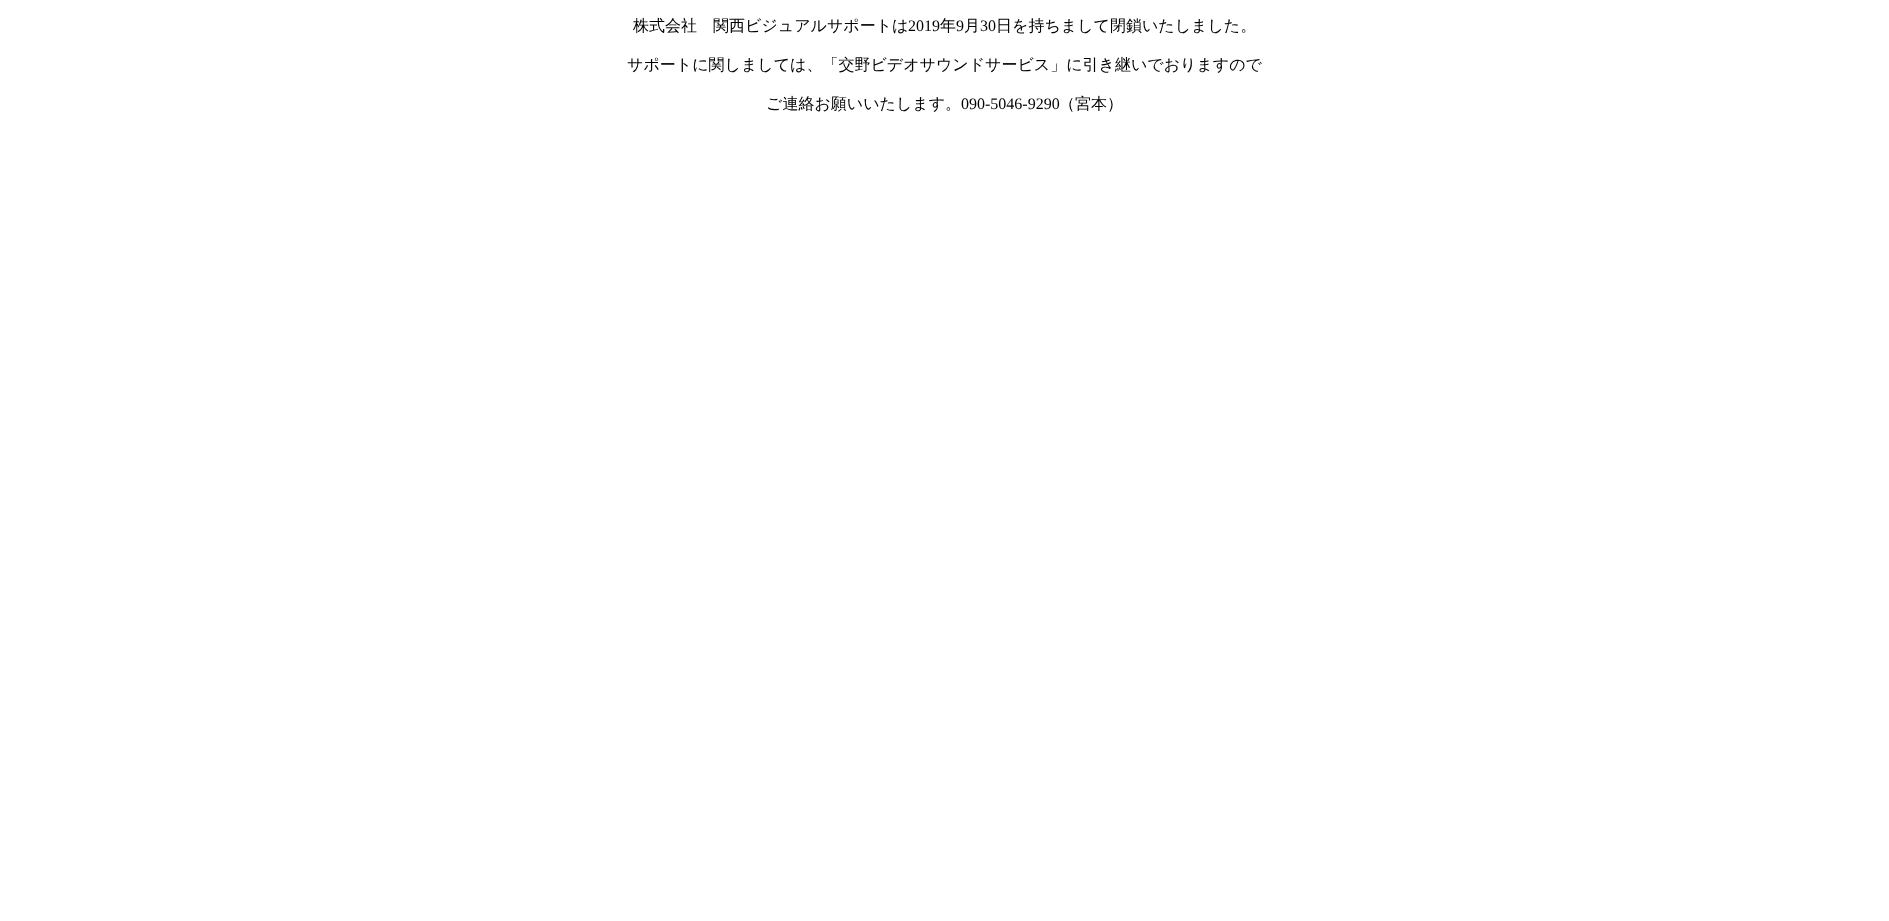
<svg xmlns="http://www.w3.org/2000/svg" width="1889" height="921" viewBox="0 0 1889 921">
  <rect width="100%" height="100%" fill="#fff"/>
  <text x="633" y="31" font-family="WenQuanYi Zen Hei" font-size="16" font-weight="500" fill="#000">株式会社　関西ビジュアルサポートは</text>
  <text x="908" y="31" font-family="Liberation Serif" font-size="16" fill="#000">2019</text>
  <text x="940" y="31" font-family="WenQuanYi Zen Hei" font-size="16" font-weight="500" fill="#000">年</text>
  <text x="956" y="31" font-family="Liberation Serif" font-size="16" fill="#000">9</text>
  <text x="964" y="31" font-family="WenQuanYi Zen Hei" font-size="16" font-weight="500" fill="#000">月</text>
  <text x="980" y="31" font-family="Liberation Serif" font-size="16" fill="#000">30</text>
  <g font-family="WenQuanYi Zen Hei" font-size="16" font-weight="500" fill="#000">
    <text x="996" y="31">日を持ちまして閉鎖いたしました。</text>
    <text x="627" y="70">サポートに関しましては、「交野ビデオサウンドサービス」に引き継いでおりますので</text>
    <text x="766" y="109">ご連絡お願いいたします。</text>
  </g>
  <text x="961" y="109" font-family="Liberation Serif" font-size="16" fill="#000">090-5046-9290</text>
  <text x="1059" y="109" font-family="WenQuanYi Zen Hei" font-size="16" font-weight="500" fill="#000">（宮本）</text>
</svg>
